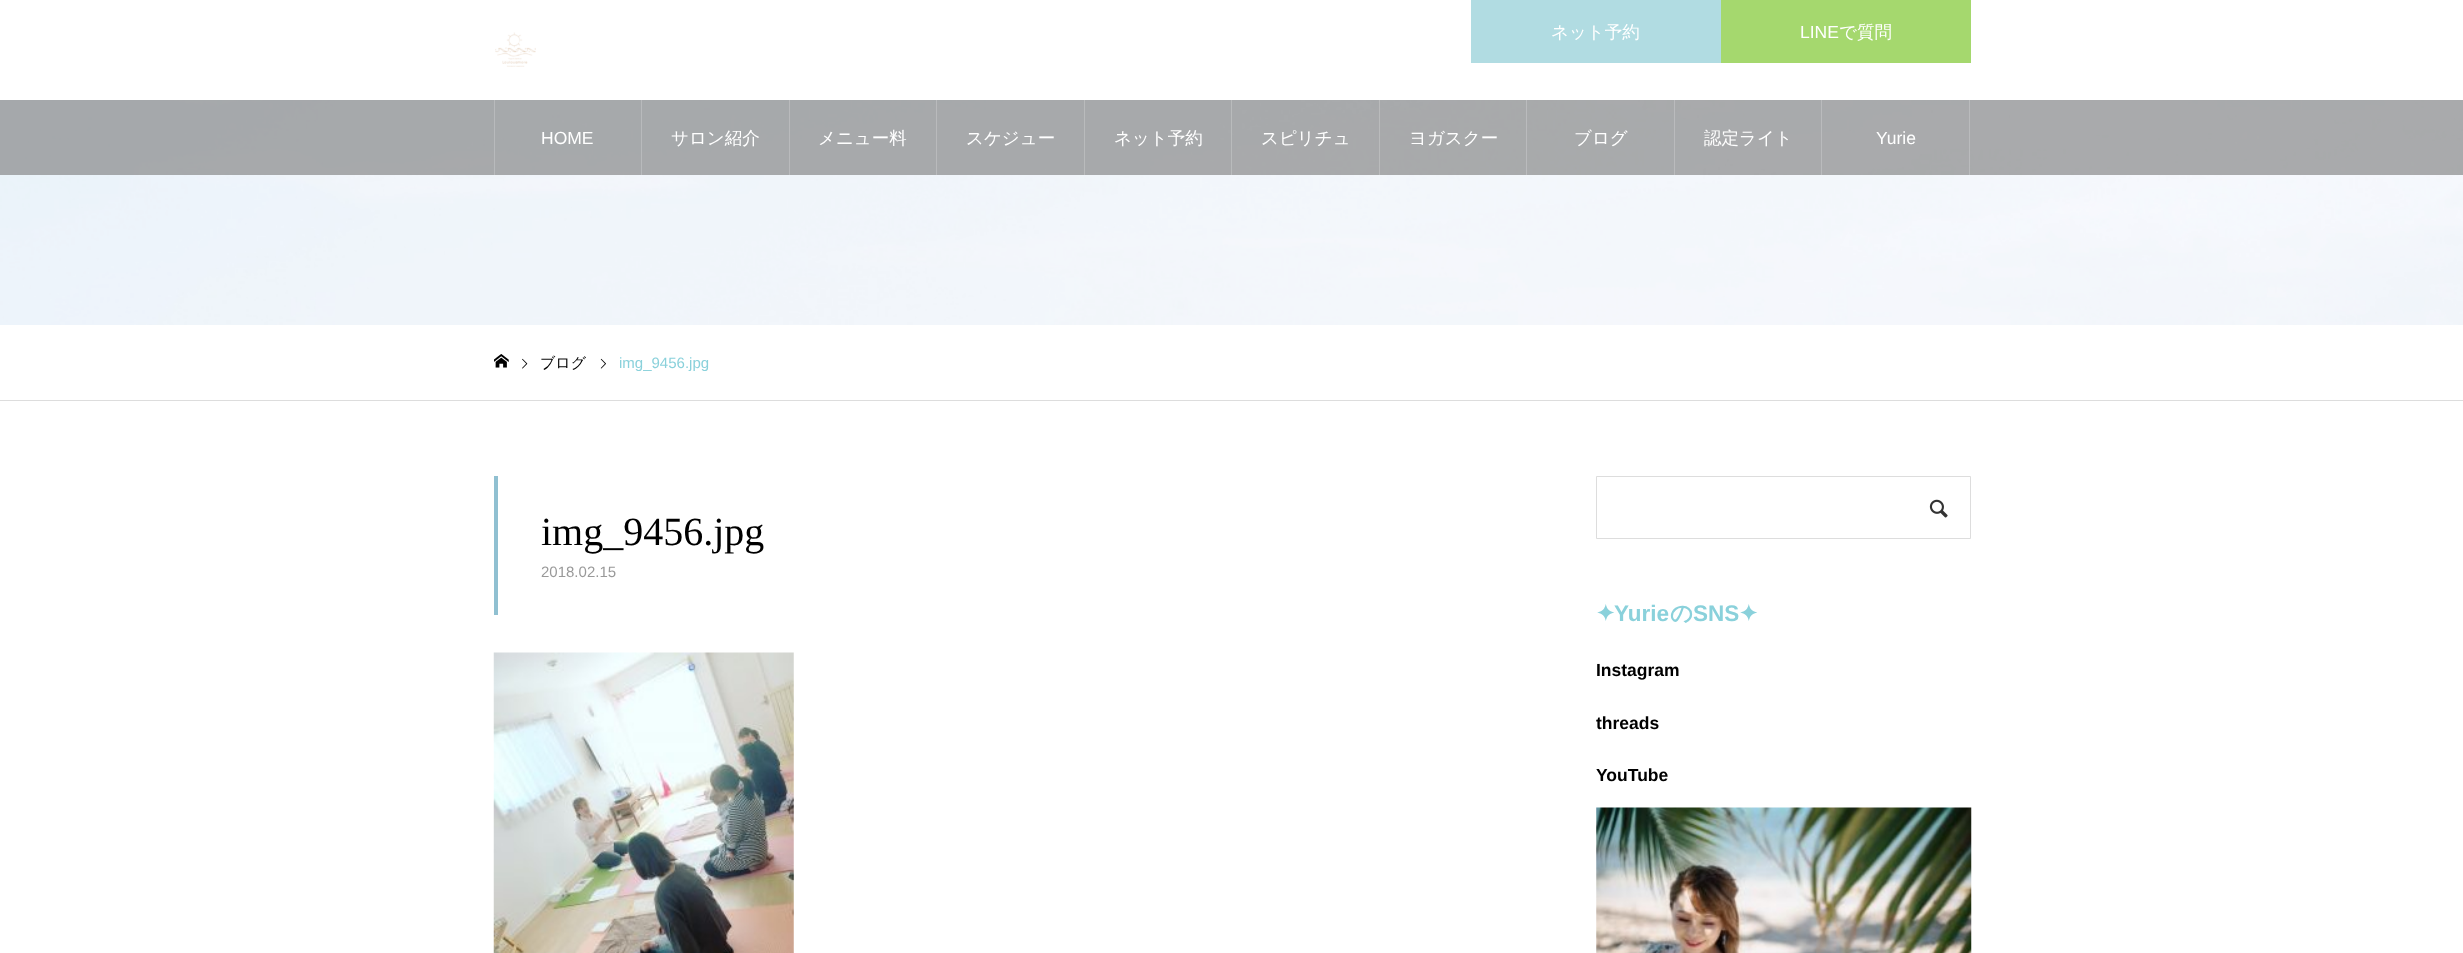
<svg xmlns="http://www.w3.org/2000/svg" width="2463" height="953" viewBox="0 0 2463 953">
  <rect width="100%" height="100%" fill="#fff"/>
  <image x="495" y="32" width="41" height="35" href="img/1.png"/>
  <path d="M1471 0h250v63H1471z" fill="#b1dce2"/>
  <path d="M1721 0h250v63H1721z" fill="#a5d86e"/>
  <image x="0" y="100" width="2463" height="225" href="img/2.png"/>
  <path d="M0 100h2463v75H0z" fill="#77777799"/>
  <path d="M494 100h1v75H494z" fill="#b8babc"/>
  <path d="M641 100h1v75H641z" fill="#b8babc"/>
  <path d="M789 100h1v75H789z" fill="#b9babc"/>
  <path d="M936 100h1v75H936z" fill="#b9babc"/>
  <path d="M1084 100h1v75H1084z" fill="#b9bbbc"/>
  <path d="M1231 100h1v75H1231z" fill="#b9bbbc"/>
  <path d="M1379 100h1v75H1379z" fill="#babbbc"/>
  <path d="M1526 100h1v75H1526z" fill="#babbbd"/>
  <path d="M1674 100h1v75H1674z" fill="#babbbd"/>
  <path d="M1821 100h1v75H1821z" fill="#babbbd"/>
  <path d="M1969 100h1v75H1969z" fill="#babbbd"/>
  <path d="M0 400h2463v1H0z" fill="#ddd"/>
  <image x="494" y="354" width="15" height="14" href="img/3.png"/>
  <image x="522" y="358" width="6" height="11" href="img/4.png"/>
  <image x="600" y="358" width="6" height="11" href="img/5.png"/>
  <path d="M494 476h4v139H494z" fill="#90c0d1"/>
  <image x="493" y="652" width="301" height="301" href="img/6.png"/>
  <path d="M1596.5 476.5h374v62H1596.5z" fill="none" stroke="#ddd"/>
  <image x="1929" y="499" width="19" height="19" href="img/7.png"/>
  <image x="1596" y="807" width="376" height="146" href="img/8.png"/>
  <text x="1551" y="38" font-family="WenQuanYi Zen Hei" font-size="17.5" font-weight="500" fill="#fff">ネット予約</text>
  <text x="1800" y="38" font-family="Liberation Sans" font-size="17.5" fill="#fff">LINE</text>
  <text x="1839" y="38" font-family="WenQuanYi Zen Hei" font-size="17.5" font-weight="500" fill="#fff">で質問</text>
  <text x="541" y="144" font-family="Liberation Sans" font-size="17.5" fill="#fff">HOME</text>
  <g font-family="WenQuanYi Zen Hei" font-size="17.5" font-weight="500" fill="#fff">
    <text x="671" y="144">サロン紹介</text>
    <text x="818" y="144">メニュー料</text>
    <text x="966" y="144">スケジュー</text>
    <text x="1114" y="144">ネット予約</text>
    <text x="1261" y="144">スピリチュ</text>
    <text x="1409" y="144">ヨガスクー</text>
    <text x="1574" y="144">ブログ</text>
    <text x="1704" y="144">認定ライト</text>
  </g>
  <text x="1876" y="144" font-family="Liberation Sans" font-size="17.5" fill="#fff">Yurie</text>
  <text x="540" y="368" font-family="WenQuanYi Zen Hei" font-size="15" font-weight="500" fill="#000">ブログ</text>
  <text x="619" y="368" font-family="Liberation Sans" font-size="15" fill="#8ad1db">img_9456.jpg</text>
  <text x="541" y="545" font-family="Liberation Serif" font-size="40" fill="#000">img_9456.jpg</text>
  <text x="541" y="577" font-family="Liberation Sans" font-size="15" fill="#999">2018.02.15</text>
  <text x="1596" y="621" font-family="DejaVu Sans" font-size="22.5" font-weight="bold" fill="#8ad1db">✦</text>
  <text x="1614" y="621" font-family="Liberation Sans" font-size="22.5" font-weight="bold" fill="#8ad1db">Yurie</text>
  <text x="1670" y="621" font-family="WenQuanYi Zen Hei" font-size="22.5" font-weight="bold" fill="#8ad1db">の</text>
  <text x="1693" y="621" font-family="Liberation Sans" font-size="22.5" font-weight="bold" fill="#8ad1db">SNS</text>
  <text x="1739" y="621" font-family="DejaVu Sans" font-size="22.5" font-weight="bold" fill="#8ad1db">✦</text>
  <g font-family="Liberation Sans" font-size="17.5" font-weight="bold" fill="#000">
    <text x="1596" y="676">Instagram</text>
    <text x="1596" y="729">threads</text>
    <text x="1596" y="781">YouTube</text>
  </g>
</svg>
